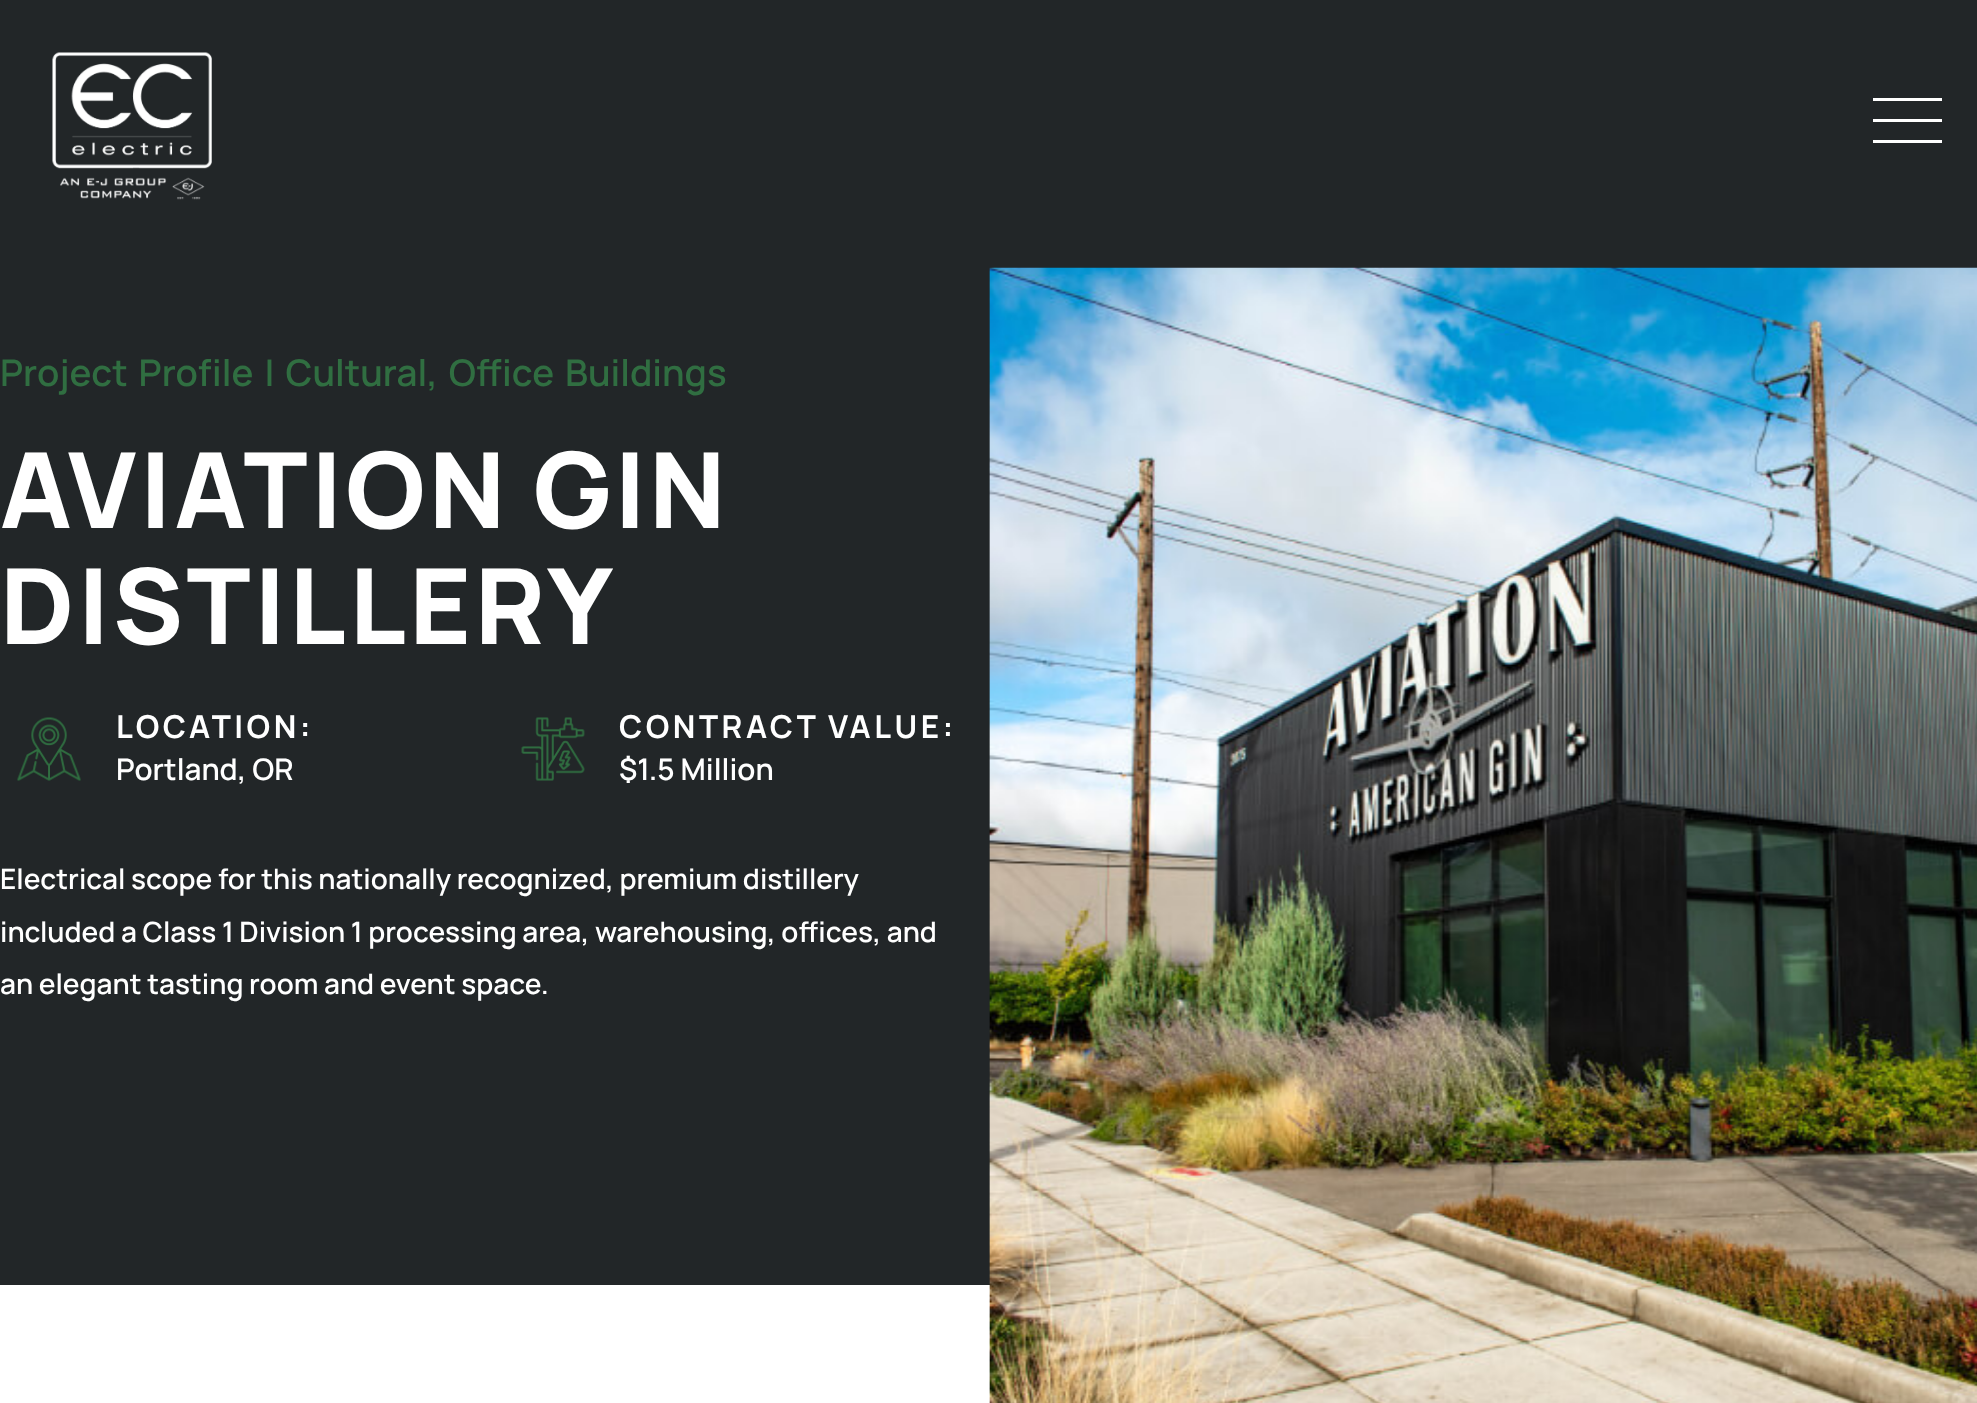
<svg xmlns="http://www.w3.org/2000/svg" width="1977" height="1403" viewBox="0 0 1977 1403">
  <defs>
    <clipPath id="clip1"><path d="M1873 86h70v70H1873z"/></clipPath>
  </defs>
  <rect width="100%" height="100%" fill="#fff"/>
  <path d="M0 0h1977v1285H0z" fill="#222628"/>
  <image x="52" y="52" width="160" height="148" href="img/1.png"/>
  <g clip-path="url(#clip1)">
    <path d="M1872 98V101H1942V98ZM1872 119V122H1942V119ZM1872 140V143H1942V140Z" fill="#fff"/>
  </g>
  <image x="17" y="717" width="64" height="64" href="img/2.png"/>
  <image x="521" y="717" width="64" height="64" href="img/3.png"/>
  <image x="989" y="267" width="988" height="1136" href="img/4.png"/>
  <text x="0" y="386" word-spacing="3.5" font-family="Manrope" font-size="36.75" font-weight="600" fill="#306e41">Project Profile | Cultural, Office Buildings</text>
  <g font-family="Manrope" font-size="105" font-weight="800" letter-spacing="3.5" fill="#fff">
    <text x="0" y="528">AVIATION GIN</text>
    <text x="0" y="644">DISTILLERY</text>
  </g>
  <text x="116" y="738" font-family="Manrope" font-size="31.5" font-weight="bold" letter-spacing="3.5" fill="#fff">LOCATION:</text>
  <text x="116" y="780" font-family="Manrope" font-size="29.75" font-weight="600" fill="#fff">Portland, OR</text>
  <text x="619" y="738" font-family="Manrope" font-size="31.5" font-weight="bold" letter-spacing="3.5" fill="#fff">CONTRACT VALUE:</text>
  <text x="619" y="780" font-family="Manrope" font-size="29.75" font-weight="600" fill="#fff">$1.5 Million</text>
  <g font-family="Manrope" font-size="28" font-weight="600" fill="#fff">
    <text x="0" y="889">Electrical scope for this nationally recognized, premium distillery</text>
    <text x="0" y="942">included a Class 1 Division 1 processing area, warehousing, offices, and</text>
    <text x="0" y="994">an elegant tasting room and event space.</text>
  </g>
</svg>
